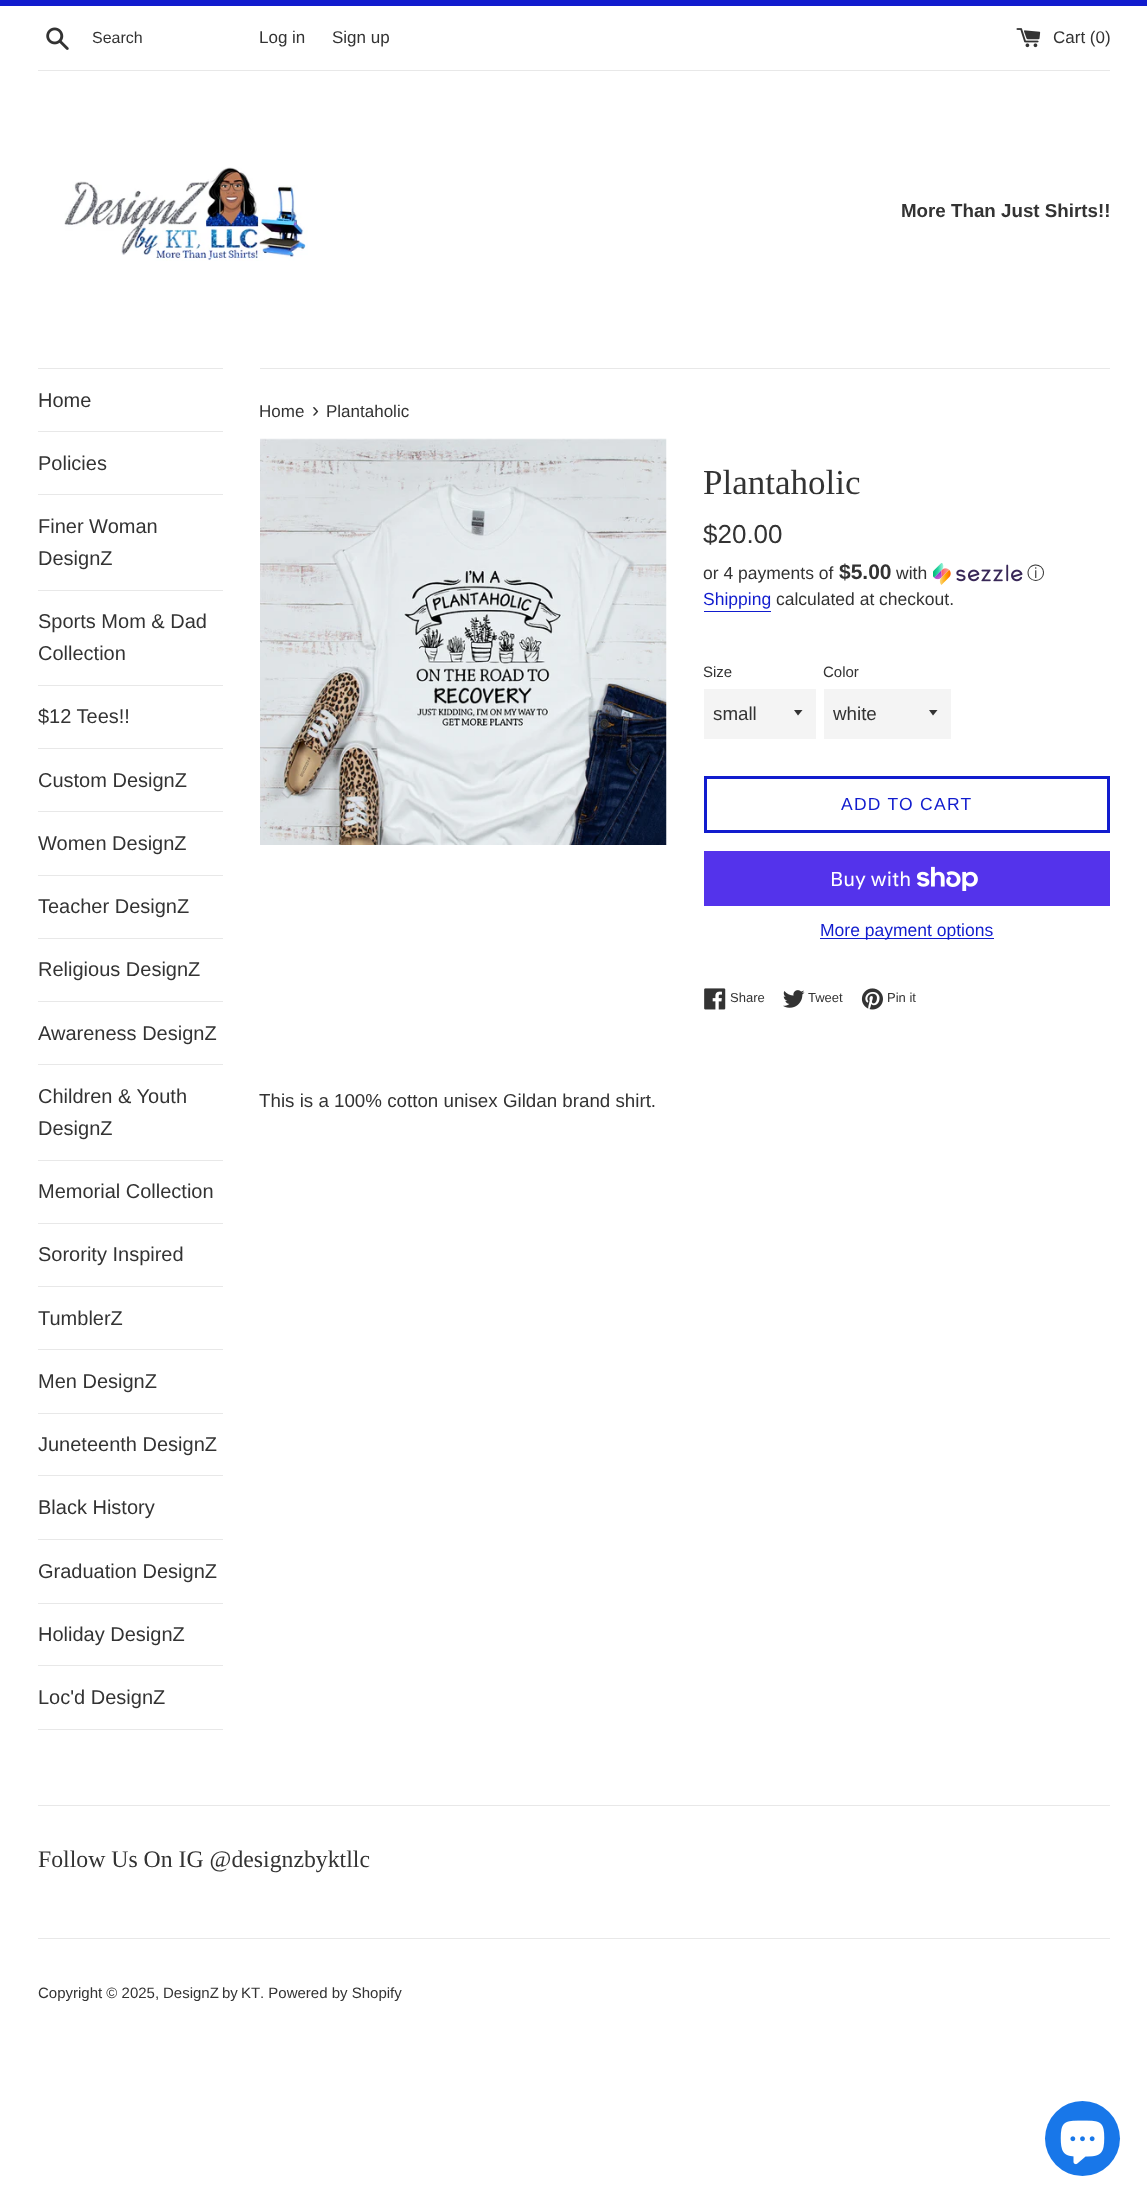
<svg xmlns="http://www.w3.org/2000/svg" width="1147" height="2202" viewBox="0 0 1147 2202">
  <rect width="100%" height="100%" fill="#fff"/>
  <path d="M0 0h1147v6H0z" fill="#111cce"/>
  <image x="46" y="27" width="23" height="23" href="img/1.png"/>
  <image x="1016" y="28" width="25" height="20" href="img/2.png"/>
  <path d="M38 70h1072v1H38z" fill="#e8e8e8"/>
  <image x="64" y="167" width="244" height="94" href="img/3.png"/>
  <path d="M38 368h185v1H38z" fill="#e8e8e8"/>
  <path d="M38 431h185v1H38z" fill="#e8e8e8"/>
  <path d="M38 494h185v1H38z" fill="#e8e8e8"/>
  <path d="M38 590h185v1H38z" fill="#e8e8e8"/>
  <path d="M38 685h185v1H38z" fill="#e8e8e8"/>
  <path d="M38 748h185v1H38z" fill="#e8e8e8"/>
  <path d="M38 811h185v1H38z" fill="#e8e8e8"/>
  <path d="M38 875h185v1H38z" fill="#e8e8e8"/>
  <path d="M38 938h185v1H38z" fill="#e8e8e8"/>
  <path d="M38 1001h185v1H38z" fill="#e8e8e8"/>
  <path d="M38 1064h185v1H38z" fill="#e8e8e8"/>
  <path d="M38 1160h185v1H38z" fill="#e8e8e8"/>
  <path d="M38 1223h185v1H38z" fill="#e8e8e8"/>
  <path d="M38 1286h185v1H38z" fill="#e8e8e8"/>
  <path d="M38 1349h185v1H38z" fill="#e8e8e8"/>
  <path d="M38 1413h185v1H38z" fill="#e8e8e8"/>
  <path d="M38 1475h185v1H38z" fill="#e8e8e8"/>
  <path d="M38 1539h185v1H38z" fill="#e8e8e8"/>
  <path d="M38 1603h185v1H38z" fill="#e8e8e8"/>
  <path d="M38 1665h185v1H38z" fill="#e8e8e8"/>
  <path d="M38 1729h185v1H38z" fill="#e8e8e8"/>
  <path d="M260 368h850v1H260z" fill="#e8e8e8"/>
  <image x="260" y="438" width="407" height="407" href="img/4.png"/>
  <image x="933" y="563" width="90" height="22" href="img/5.png"/>
  <path d="M704 611h67v1H704z" fill="#111cce"/>
  <path d="M704 689h112v50H704z" fill="#f4f4f4"/>
  <path d="M794 710L798 715.5L802.5 710Z" fill="#333"/>
  <path d="M824 689h127v50H824z" fill="#f4f4f4"/>
  <path d="M929 710L933 715.5L937.5 710Z" fill="#333"/>
  <path d="M705.5 777.5h403v54H705.5z" fill="none" stroke="#111cce" stroke-width="3"/>
  <path d="M704 851h406v55H704z" fill="#5433eb"/>
  <image x="916" y="866" width="62" height="25" href="img/6.png"/>
  <path d="M820 938h174v1H820z" fill="#111cce"/>
  <image x="704" y="988" width="22" height="22" href="img/7.png"/>
  <image x="783" y="990" width="22" height="18" href="img/8.png"/>
  <image x="861" y="988" width="22" height="22" href="img/9.png"/>
  <path d="M38 1805h1072v1H38z" fill="#e8e8e8"/>
  <path d="M38 1938h1072v1H38z" fill="#e8e8e8"/>
  <circle cx="1082.5" cy="2138.5" r="37.5" fill="#1877e9"/>
  <image x="1060" y="2120" width="45" height="45" href="img/10.png"/>
  <text x="92" y="43" font-family="Liberation Sans" font-size="16" fill="#333">Search</text>
  <g font-family="Liberation Sans" font-size="17" fill="#333">
    <text x="259" y="43">Log in</text>
    <text x="332" y="43">Sign up</text>
    <text x="1053" y="43">Cart (0)</text>
  </g>
  <text x="901" y="217" font-family="Liberation Sans" font-size="18.75" font-weight="bold" fill="#333">More Than Just Shirts!!</text>
  <g font-family="Liberation Sans" font-size="20" fill="#333">
    <text x="38" y="407">Home</text>
    <text x="38" y="470">Policies</text>
    <text x="38" y="533">Finer Woman</text>
    <text x="38" y="565">DesignZ</text>
    <text x="38" y="628">Sports Mom &amp; Dad</text>
    <text x="38" y="660">Collection</text>
    <text x="38" y="723">$12 Tees!!</text>
    <text x="38" y="787">Custom DesignZ</text>
    <text x="38" y="850">Women DesignZ</text>
    <text x="38" y="913">Teacher DesignZ</text>
    <text x="38" y="976">Religious DesignZ</text>
    <text x="38" y="1040">Awareness DesignZ</text>
    <text x="38" y="1103">Children &amp; Youth</text>
    <text x="38" y="1135">DesignZ</text>
    <text x="38" y="1198">Memorial Collection</text>
    <text x="38" y="1261">Sorority Inspired</text>
    <text x="38" y="1325">TumblerZ</text>
    <text x="38" y="1388">Men DesignZ</text>
    <text x="38" y="1451">Juneteenth DesignZ</text>
    <text x="38" y="1514">Black History</text>
    <text x="38" y="1578">Graduation DesignZ</text>
    <text x="38" y="1641">Holiday DesignZ</text>
    <text x="38" y="1704">Loc'd DesignZ</text>
  </g>
  <text x="259" y="417" font-family="Liberation Sans" font-size="17" fill="#333">Home</text>
  <text x="312" y="417" font-family="Liberation Sans" font-size="21" fill="#333">›</text>
  <text x="326" y="417" font-family="Liberation Sans" font-size="17" fill="#333">Plantaholic</text>
  <text x="703" y="494" font-family="Liberation Serif" font-size="35" fill="#333">Plantaholic</text>
  <text x="703" y="543" font-family="Liberation Sans" font-size="26" fill="#333">$20.00</text>
  <text x="703" y="579" font-family="Liberation Sans" font-size="17.5" fill="#333">or 4 payments of</text>
  <text x="839" y="579" font-family="Liberation Sans" font-size="21" font-weight="bold" fill="#333">$5.00</text>
  <text x="896" y="579" font-family="Liberation Sans" font-size="17.5" fill="#333">with</text>
  <text x="1027" y="579" font-family="WenQuanYi Zen Hei" font-size="17.5" font-weight="500" fill="#333">ⓘ</text>
  <text x="703" y="605" font-family="Liberation Sans" font-size="17.5" fill="#111cce">Shipping</text>
  <text x="776" y="605" font-family="Liberation Sans" font-size="17.5" fill="#333">calculated at checkout.</text>
  <text x="703" y="677" font-family="Liberation Sans" font-size="15" fill="#333">Size</text>
  <text x="713" y="720" font-family="Liberation Sans" font-size="18.75" fill="#333">small</text>
  <text x="823" y="677" font-family="Liberation Sans" font-size="15" fill="#333">Color</text>
  <text x="833" y="720" font-family="Liberation Sans" font-size="18.75" fill="#333">white</text>
  <text x="841" y="810" font-family="Liberation Sans" font-size="17.5" letter-spacing="1.25" fill="#111cce">ADD TO CART</text>
  <text x="830" y="886" font-family="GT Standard" font-size="20" fill="#fff">Buy with</text>
  <text x="820" y="936" font-family="Liberation Sans" font-size="17.5" fill="#111cce">More payment options</text>
  <g font-family="Liberation Sans" font-size="13" fill="#333">
    <text x="730" y="1002">Share</text>
    <text x="808" y="1002">Tweet</text>
    <text x="887" y="1002">Pin it</text>
  </g>
  <text x="259" y="1107" font-family="Liberation Sans" font-size="18.75" fill="#333">This is a 100% cotton unisex Gildan brand shirt.</text>
  <text x="38" y="1867" font-family="Liberation Serif" font-size="23.75" fill="#333">Follow Us On IG @designzbyktllc</text>
  <g font-family="Liberation Sans" font-size="15" fill="#333">
    <text x="38" y="1998">Copyright © 2025,</text>
    <text x="163" y="1998" word-spacing="-1">DesignZ by KT</text>
    <text x="260" y="1998">. Powered by Shopify</text>
  </g>
</svg>
